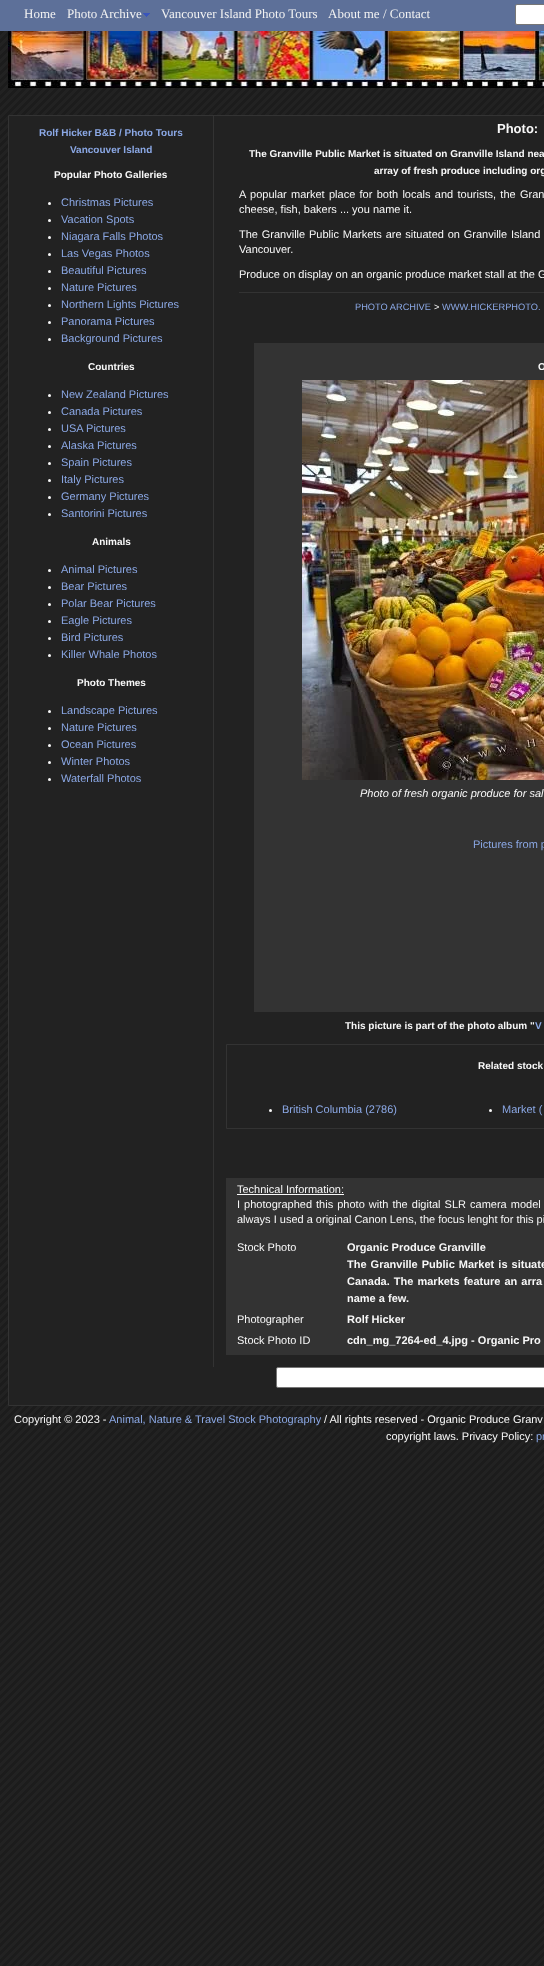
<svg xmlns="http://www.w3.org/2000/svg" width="544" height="1966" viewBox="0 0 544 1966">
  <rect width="100%" height="100%" fill="#fff"/>
  <image x="0" y="31" width="544" height="1935" href="img/1.png"/>
  <path d="M0 0h544v31H0z" fill="#5d7099"/>
  <image x="143" y="13" width="7" height="4" href="img/2.png"/>
  <rect x="515.5" y="4.5" width="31" height="20" rx="1.5" fill="#fff" stroke="#767676"/>
  <image x="8" y="31" width="536" height="57" href="img/3.png"/>
  <path d="M8.5 115.5h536v1290H8.5z" fill="#222" stroke="#333"/>
  <circle cx="49.5" cy="203.5" r="1.5" fill="#f8f8f8"/>
  <circle cx="49.5" cy="220.5" r="1.5" fill="#f8f8f8"/>
  <circle cx="49.5" cy="237.5" r="1.5" fill="#f8f8f8"/>
  <circle cx="49.5" cy="254.5" r="1.5" fill="#f8f8f8"/>
  <circle cx="49.5" cy="271.5" r="1.5" fill="#f8f8f8"/>
  <circle cx="49.5" cy="288.5" r="1.5" fill="#f8f8f8"/>
  <circle cx="49.5" cy="305.5" r="1.5" fill="#f8f8f8"/>
  <circle cx="49.5" cy="322.5" r="1.5" fill="#f8f8f8"/>
  <circle cx="49.5" cy="339.5" r="1.5" fill="#f8f8f8"/>
  <circle cx="49.5" cy="395.5" r="1.5" fill="#f8f8f8"/>
  <circle cx="49.5" cy="412.5" r="1.5" fill="#f8f8f8"/>
  <circle cx="49.5" cy="429.5" r="1.5" fill="#f8f8f8"/>
  <circle cx="49.5" cy="446.5" r="1.5" fill="#f8f8f8"/>
  <circle cx="49.5" cy="463.5" r="1.5" fill="#f8f8f8"/>
  <circle cx="49.5" cy="480.5" r="1.5" fill="#f8f8f8"/>
  <circle cx="49.5" cy="497.5" r="1.5" fill="#f8f8f8"/>
  <circle cx="49.5" cy="514.5" r="1.5" fill="#f8f8f8"/>
  <circle cx="49.5" cy="570.5" r="1.5" fill="#f8f8f8"/>
  <circle cx="49.5" cy="587.5" r="1.5" fill="#f8f8f8"/>
  <circle cx="49.5" cy="604.5" r="1.5" fill="#f8f8f8"/>
  <circle cx="49.5" cy="621.5" r="1.5" fill="#f8f8f8"/>
  <circle cx="49.5" cy="638.5" r="1.5" fill="#f8f8f8"/>
  <circle cx="49.5" cy="655.5" r="1.5" fill="#f8f8f8"/>
  <circle cx="49.5" cy="711.5" r="1.5" fill="#f8f8f8"/>
  <circle cx="49.5" cy="728.5" r="1.5" fill="#f8f8f8"/>
  <circle cx="49.5" cy="745.5" r="1.5" fill="#f8f8f8"/>
  <circle cx="49.5" cy="762.5" r="1.5" fill="#f8f8f8"/>
  <circle cx="49.5" cy="779.5" r="1.5" fill="#f8f8f8"/>
  <path d="M213 116h1v1251H213z" fill="#333"/>
  <path d="M239 292h305v1H239z" fill="#333"/>
  <path d="M254 343h290v669H254z" fill="#333"/>
  <image x="302" y="380" width="242" height="400" href="img/4.png"/>
  <path d="M226.5 1044.5h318v84H226.5z" fill="none" stroke="#333"/>
  <circle cx="270.5" cy="1110.5" r="1.5" fill="#f8f8f8"/>
  <circle cx="490.5" cy="1110.5" r="1.5" fill="#f8f8f8"/>
  <path d="M226 1178h318v177H226z" fill="#333"/>
  <path d="M237 1194h107v1H237z" fill="#f8f8f8"/>
  <rect x="276.5" y="1367.5" width="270" height="20" rx="1.5" fill="#fff" stroke="#767676"/>
  <g font-family="Liberation Serif" font-size="13" fill="#f2f2f2">
    <text x="24" y="18">Home</text>
    <text x="67" y="18">Photo Archive</text>
    <text x="161" y="18">Vancouver Island Photo Tours</text>
    <text x="328" y="18">About me / Contact</text>
  </g>
  <g font-family="Liberation Sans" font-size="10" font-weight="bold" fill="#8ba8e5">
    <text x="39" y="136">Rolf Hicker B&amp;B / Photo Tours</text>
    <text x="70" y="153">Vancouver Island</text>
  </g>
  <text x="54" y="178" font-family="Liberation Sans" font-size="10" font-weight="bold" fill="#f8f8f8">Popular Photo Galleries</text>
  <g font-family="Liberation Sans" font-size="11" fill="#8ba8e5">
    <text x="61" y="206">Christmas Pictures</text>
    <text x="61" y="223">Vacation Spots</text>
    <text x="61" y="240">Niagara Falls Photos</text>
    <text x="61" y="257">Las Vegas Photos</text>
    <text x="61" y="274">Beautiful Pictures</text>
    <text x="61" y="291">Nature Pictures</text>
    <text x="61" y="308">Northern Lights Pictures</text>
    <text x="61" y="325">Panorama Pictures</text>
    <text x="61" y="342">Background Pictures</text>
  </g>
  <text x="88" y="370" font-family="Liberation Sans" font-size="10" font-weight="bold" fill="#f8f8f8">Countries</text>
  <g font-family="Liberation Sans" font-size="11" fill="#8ba8e5">
    <text x="61" y="398">New Zealand Pictures</text>
    <text x="61" y="415">Canada Pictures</text>
    <text x="61" y="432">USA Pictures</text>
    <text x="61" y="449">Alaska Pictures</text>
    <text x="61" y="466">Spain Pictures</text>
    <text x="61" y="483">Italy Pictures</text>
    <text x="61" y="500">Germany Pictures</text>
    <text x="61" y="517">Santorini Pictures</text>
  </g>
  <text x="92" y="545" font-family="Liberation Sans" font-size="10" font-weight="bold" fill="#f8f8f8">Animals</text>
  <g font-family="Liberation Sans" font-size="11" fill="#8ba8e5">
    <text x="61" y="573">Animal Pictures</text>
    <text x="61" y="590">Bear Pictures</text>
    <text x="61" y="607">Polar Bear Pictures</text>
    <text x="61" y="624">Eagle Pictures</text>
    <text x="61" y="641">Bird Pictures</text>
    <text x="61" y="658">Killer Whale Photos</text>
  </g>
  <text x="77" y="686" font-family="Liberation Sans" font-size="10" font-weight="bold" fill="#f8f8f8">Photo Themes</text>
  <g font-family="Liberation Sans" font-size="11" fill="#8ba8e5">
    <text x="61" y="714">Landscape Pictures</text>
    <text x="61" y="731">Nature Pictures</text>
    <text x="61" y="748">Ocean Pictures</text>
    <text x="61" y="765">Winter Photos</text>
    <text x="61" y="782">Waterfall Photos</text>
  </g>
  <text x="497" y="133" font-family="Liberation Sans" font-size="13" font-weight="bold" fill="#f8f8f8">Photo:</text>
  <g font-family="Liberation Sans" font-size="10" font-weight="bold" fill="#f8f8f8">
    <text x="249" y="157">The Granville Public Market is situated on Granville Island nea</text>
    <text x="374" y="174">array of fresh produce including org</text>
  </g>
  <g font-family="Liberation Sans" font-size="11" fill="#f8f8f8">
    <text x="239" y="198" word-spacing="1.25">A popular market place for both locals and tourists, the Gran</text>
    <text x="239" y="213">cheese, fish, bakers ... you name it.</text>
    <text x="239" y="238" word-spacing="0.75">The Granville Public Markets are situated on Granville Island</text>
    <text x="239" y="253">Vancouver.</text>
    <text x="239" y="278">Produce on display on an organic produce market stall at the G</text>
  </g>
  <text x="355" y="310" font-family="Liberation Sans" font-size="9.25" fill="#8ba8e5">PHOTO ARCHIVE</text>
  <text x="434" y="310" font-family="Liberation Sans" font-size="9.25" fill="#f8f8f8">&gt;</text>
  <text x="442" y="310" font-family="Liberation Sans" font-size="9.25" fill="#8ba8e5">WWW.HICKERPHOTO.</text>
  <text x="538" y="370" font-family="Liberation Sans" font-size="10" font-weight="bold" fill="#f8f8f8">O</text>
  <text x="360" y="797" font-family="Liberation Sans" font-size="11" font-style="italic" fill="#f8f8f8">Photo of fresh organic produce for sal</text>
  <text x="473" y="848" font-family="Liberation Sans" font-size="11" fill="#8ba8e5">Pictures from p</text>
  <text x="345" y="1029" font-family="Liberation Sans" font-size="10" font-weight="bold" fill="#f8f8f8">This picture is part of the photo album "</text>
  <text x="535" y="1029" font-family="Liberation Sans" font-size="10" font-weight="bold" fill="#8ba8e5">V</text>
  <text x="478" y="1069" font-family="Liberation Sans" font-size="10" font-weight="bold" fill="#f8f8f8">Related stock</text>
  <g font-family="Liberation Sans" font-size="11" fill="#8ba8e5">
    <text x="282" y="1113">British Columbia (2786)</text>
    <text x="502" y="1113">Market (</text>
  </g>
  <g font-family="Liberation Sans" font-size="11" fill="#f8f8f8">
    <text x="237" y="1193">Technical Information:</text>
    <text x="237" y="1208" word-spacing="1">I photographed this photo with the digital SLR camera model</text>
    <text x="237" y="1223">always I used a original Canon Lens, the focus lenght for this pi</text>
    <text x="237" y="1251">Stock Photo</text>
  </g>
  <g font-family="Liberation Sans" font-size="11" font-weight="bold" fill="#f8f8f8">
    <text x="347" y="1251">Organic Produce Granville</text>
    <text x="347" y="1268" word-spacing="1">The Granville Public Market is situate</text>
    <text x="347" y="1285" word-spacing="1">Canada. The markets feature an arra</text>
    <text x="347" y="1302">name a few.</text>
  </g>
  <text x="237" y="1323" font-family="Liberation Sans" font-size="11" fill="#f8f8f8">Photographer</text>
  <text x="347" y="1323" font-family="Liberation Sans" font-size="11" font-weight="bold" fill="#f8f8f8">Rolf Hicker</text>
  <text x="237" y="1344" font-family="Liberation Sans" font-size="11" fill="#f8f8f8">Stock Photo ID</text>
  <text x="347" y="1344" font-family="Liberation Sans" font-size="11" font-weight="bold" fill="#f8f8f8">cdn_mg_7264-ed_4.jpg - Organic Pro</text>
  <text x="14" y="1423" font-family="Liberation Sans" font-size="11" fill="#f8f8f8">Copyright © 2023 -</text>
  <text x="109" y="1423" font-family="Liberation Sans" font-size="11" fill="#8ba8e5">Animal, Nature &amp; Travel Stock Photography</text>
  <g font-family="Liberation Sans" font-size="11" fill="#f8f8f8">
    <text x="324" y="1423">/ All rights reserved - Organic Produce Granv</text>
    <text x="386" y="1440">copyright laws. Privacy Policy:</text>
  </g>
  <text x="536" y="1440" font-family="Liberation Sans" font-size="11" fill="#8ba8e5">pr</text>
</svg>
